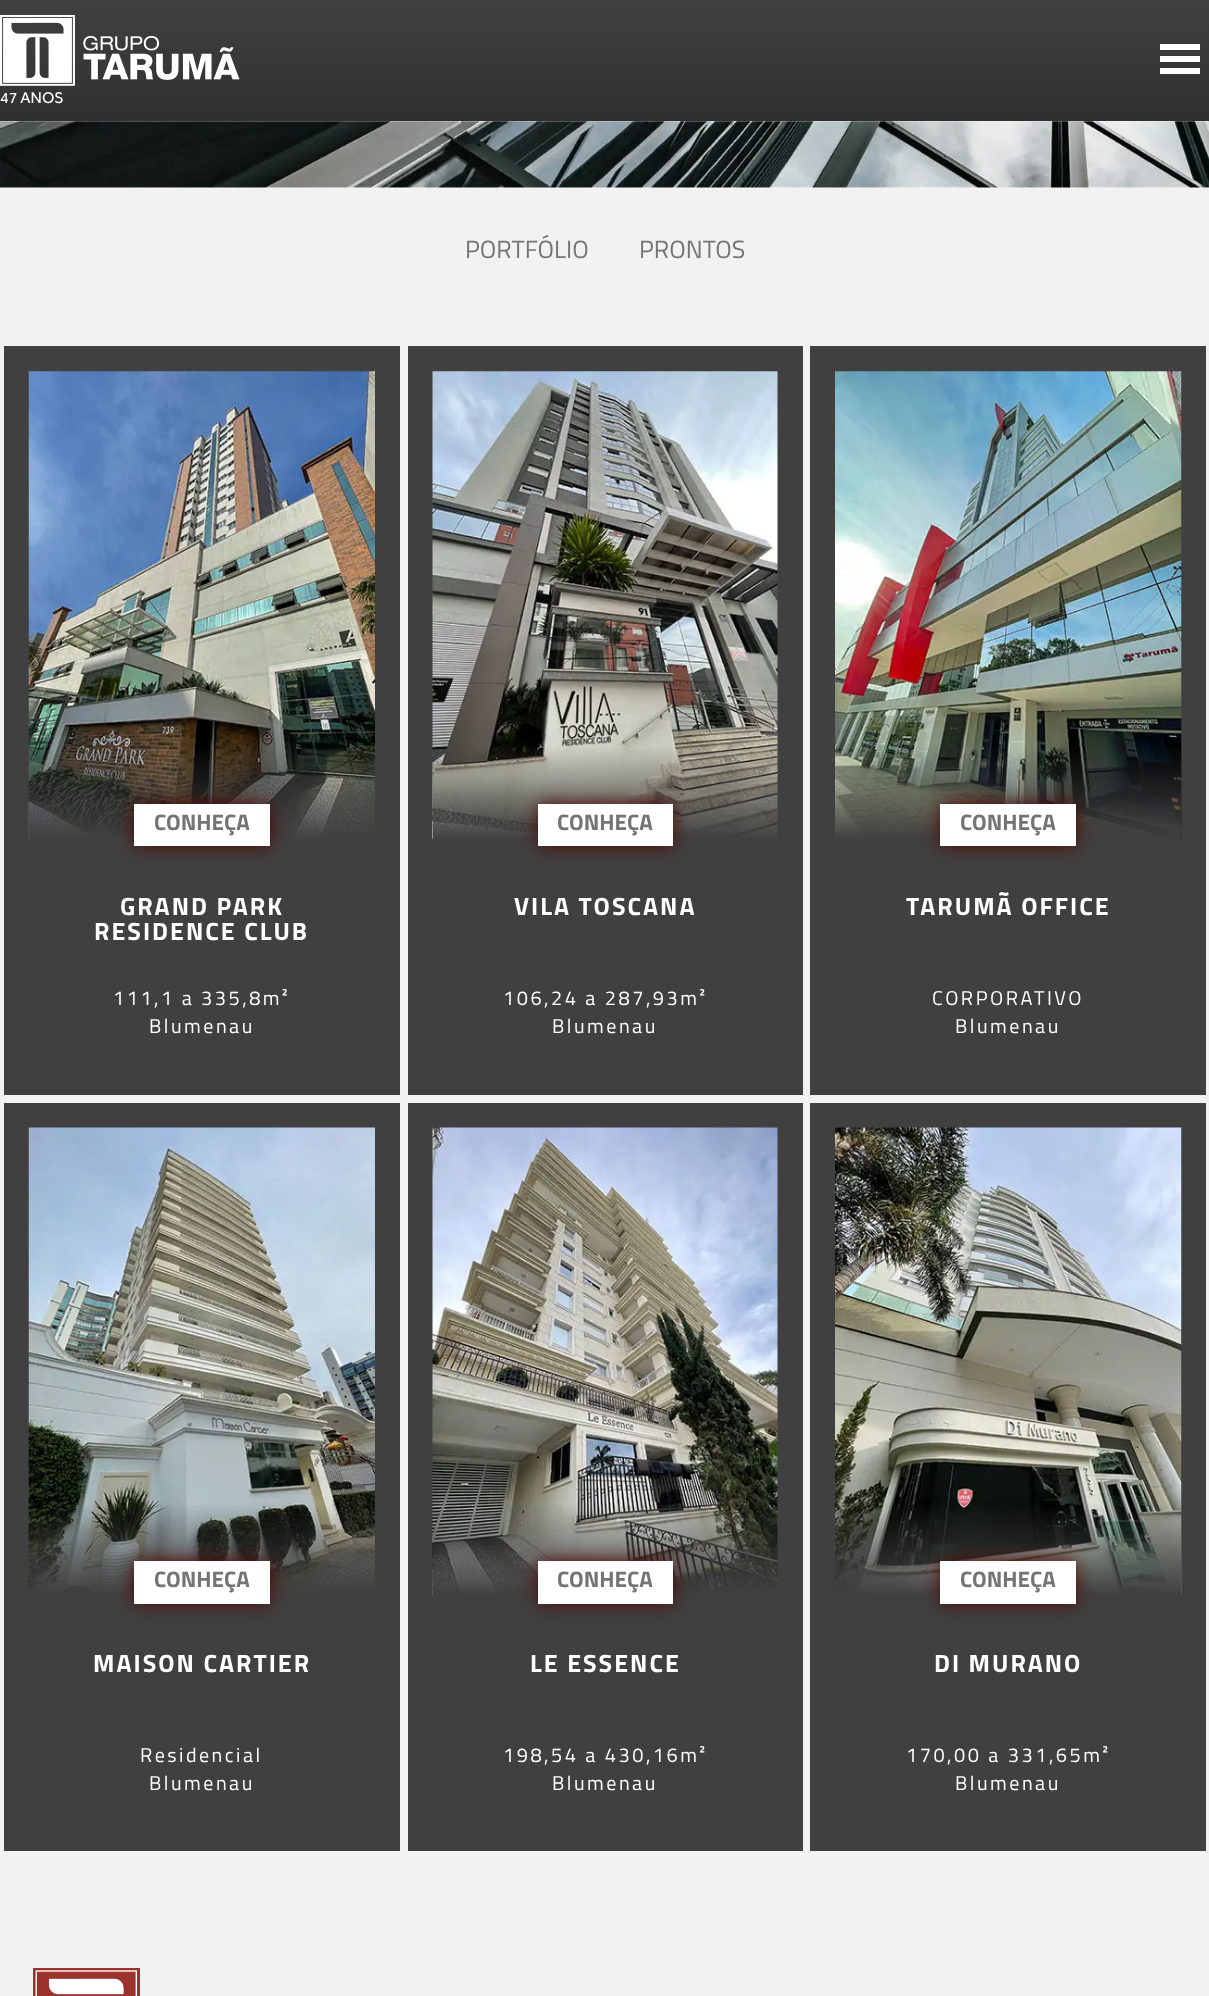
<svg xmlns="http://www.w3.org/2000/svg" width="1209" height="1996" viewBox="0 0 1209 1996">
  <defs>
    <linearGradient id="g1" gradientUnits="userSpaceOnUse" x1="605" y1="0" x2="605" y2="121"><stop offset="0" stop-color="#404040"/><stop offset="1" stop-color="#303030"/></linearGradient>
    <linearGradient id="g2" gradientUnits="userSpaceOnUse" x1="202" y1="745" x2="202" y2="839"><stop offset="0" stop-color="#404040" stop-opacity="0"/><stop offset="1" stop-color="#404040"/></linearGradient>
    <linearGradient id="g3" gradientUnits="userSpaceOnUse" x1="605" y1="745" x2="605" y2="839"><stop offset="0" stop-color="#404040" stop-opacity="0"/><stop offset="1" stop-color="#404040"/></linearGradient>
    <linearGradient id="g4" gradientUnits="userSpaceOnUse" x1="1008" y1="745" x2="1008" y2="839"><stop offset="0" stop-color="#404040" stop-opacity="0"/><stop offset="1" stop-color="#404040"/></linearGradient>
    <linearGradient id="g5" gradientUnits="userSpaceOnUse" x1="605" y1="1503" x2="605" y2="1595"><stop offset="0" stop-color="#404040" stop-opacity="0"/><stop offset="1" stop-color="#404040"/></linearGradient>
  </defs>
  <rect width="100%" height="100%" fill="#fff"/>
  <path d="M0 0h1209v121H0z" fill="url(#g1)"/>
  <path d="M1160 44V50H1200V44ZM1160 56V62H1200V56ZM1160 68V74H1200V68Z" fill="#fff"/>
  <image x="0" y="15" width="240" height="71" href="img/1.png"/>
  <image x="0" y="121" width="1209" height="67" href="img/2.png"/>
  <path d="M0 188h1209v1808H0z" fill="#f2f2f2"/>
  <path d="M4 346h396v749H4z" fill="#404040"/>
  <image x="28" y="371" width="347" height="468" href="img/3.png"/>
  <path d="M29 748h346v91H29z" fill="url(#g2)"/>
  <path d="M134 804h136v42H134z" fill="#4d0500" filter="blur(9px)"/>
  <path d="M134 804h136v42H134z" fill="#fff"/>
  <path d="M408 346h395v749H408z" fill="#404040"/>
  <image x="432" y="371" width="346" height="468" href="img/4.png"/>
  <path d="M433 747h345v92H433z" fill="url(#g3)"/>
  <path d="M538 804h135v42H538z" fill="#4d0500" filter="blur(9px)"/>
  <path d="M538 804h135v42H538z" fill="#fff"/>
  <path d="M810 346h396v749H810z" fill="#404040"/>
  <image x="835" y="371" width="347" height="468" href="img/5.png"/>
  <path d="M835 747h346v92H835z" fill="url(#g4)"/>
  <path d="M940 804h136v42H940z" fill="#4d0500" filter="blur(9px)"/>
  <path d="M940 804h136v42H940z" fill="#fff"/>
  <path d="M4 1103h396v748H4z" fill="#404040"/>
  <image x="28" y="1127" width="347" height="468" href="img/6.png"/>
  <path d="M134 1561h136v43H134z" fill="#4d0500" filter="blur(9px)"/>
  <path d="M134 1561h136v43H134z" fill="#fff"/>
  <path d="M408 1103h395v748H408z" fill="#404040"/>
  <image x="432" y="1127" width="346" height="468" href="img/7.png"/>
  <path d="M433 1505h345v90H433z" fill="url(#g5)"/>
  <path d="M538 1561h135v43H538z" fill="#4d0500" filter="blur(9px)"/>
  <path d="M538 1561h135v43H538z" fill="#fff"/>
  <path d="M810 1103h396v748H810z" fill="#404040"/>
  <image x="835" y="1127" width="347" height="468" href="img/8.png"/>
  <path d="M940 1561h136v43H940z" fill="#4d0500" filter="blur(9px)"/>
  <path d="M940 1561h136v43H940z" fill="#fff"/>
  <image x="33" y="1968" width="107" height="28" href="img/9.png"/>
  <text x="0" y="103" font-family="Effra" font-size="16" fill="#fff">47 ANOS</text>
  <g font-family="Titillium" font-size="25" fill="#747474">
    <text x="465" y="258">PORTFÓLIO</text>
    <text x="639" y="258">PRONTOS</text>
  </g>
  <text x="154" y="830" font-family="Titillium" font-size="22.5" font-weight="bold" fill="#747474">CONHEÇA</text>
  <g font-family="Titillium" font-size="25" font-weight="bold" letter-spacing="2" fill="#fff">
    <text x="120" y="915">GRAND PARK</text>
    <text x="94" y="940">RESIDENCE CLUB</text>
  </g>
  <g font-family="Titillium" font-size="20" letter-spacing="2.5" fill="#fff">
    <text x="113" y="1005">111,1 a 335,8m²</text>
    <text x="149" y="1033">Blumenau</text>
  </g>
  <text x="557" y="830" font-family="Titillium" font-size="22.5" font-weight="bold" fill="#747474">CONHEÇA</text>
  <text x="514" y="915" font-family="Titillium" font-size="25" font-weight="bold" letter-spacing="2" fill="#fff">VILA TOSCANA</text>
  <g font-family="Titillium" font-size="20" letter-spacing="2.5" fill="#fff">
    <text x="503" y="1005">106,24 a 287,93m²</text>
    <text x="552" y="1033">Blumenau</text>
  </g>
  <text x="960" y="830" font-family="Titillium" font-size="22.5" font-weight="bold" fill="#747474">CONHEÇA</text>
  <text x="906" y="915" font-family="Titillium" font-size="25" font-weight="bold" letter-spacing="2" fill="#fff">TARUMÃ OFFICE</text>
  <g font-family="Titillium" font-size="20" letter-spacing="2.5" fill="#fff">
    <text x="932" y="1005">CORPORATIVO</text>
    <text x="955" y="1033">Blumenau</text>
  </g>
  <text x="154" y="1587" font-family="Titillium" font-size="22.5" font-weight="bold" fill="#747474">CONHEÇA</text>
  <text x="93" y="1672" font-family="Titillium" font-size="25" font-weight="bold" letter-spacing="2" fill="#fff">MAISON CARTIER</text>
  <g font-family="Titillium" font-size="20" letter-spacing="2.5" fill="#fff">
    <text x="140" y="1762">Residencial</text>
    <text x="149" y="1790">Blumenau</text>
  </g>
  <text x="557" y="1587" font-family="Titillium" font-size="22.5" font-weight="bold" fill="#747474">CONHEÇA</text>
  <text x="530" y="1672" font-family="Titillium" font-size="25" font-weight="bold" letter-spacing="2" fill="#fff">LE ESSENCE</text>
  <g font-family="Titillium" font-size="20" letter-spacing="2.5" fill="#fff">
    <text x="503" y="1762">198,54 a 430,16m²</text>
    <text x="552" y="1790">Blumenau</text>
  </g>
  <text x="960" y="1587" font-family="Titillium" font-size="22.5" font-weight="bold" fill="#747474">CONHEÇA</text>
  <text x="934" y="1672" font-family="Titillium" font-size="25" font-weight="bold" letter-spacing="2" fill="#fff">DI MURANO</text>
  <g font-family="Titillium" font-size="20" letter-spacing="2.5" fill="#fff">
    <text x="906" y="1762">170,00 a 331,65m²</text>
    <text x="955" y="1790">Blumenau</text>
  </g>
</svg>
